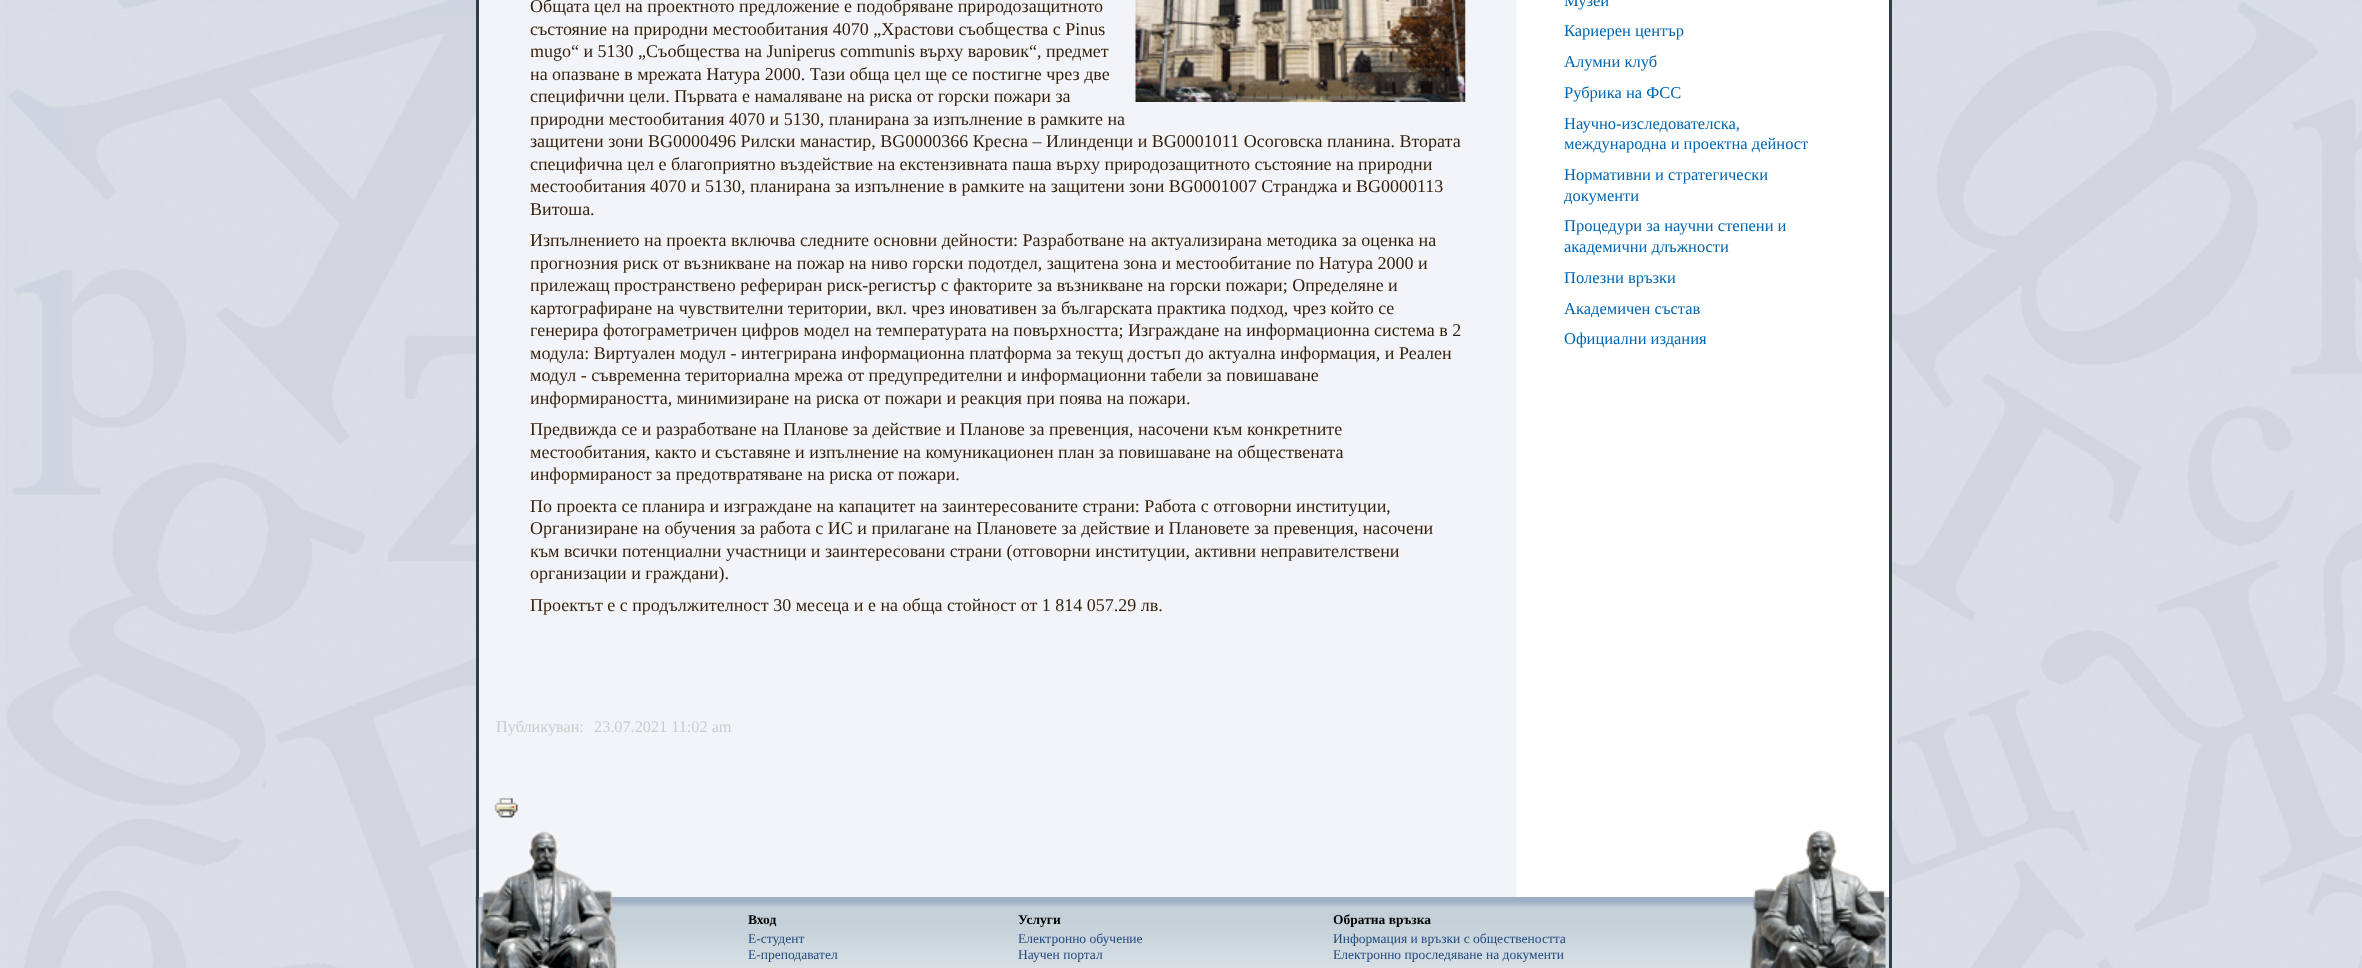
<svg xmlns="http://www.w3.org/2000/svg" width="2362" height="968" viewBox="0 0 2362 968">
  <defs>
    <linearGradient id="g1" gradientUnits="userSpaceOnUse" x1="998" y1="-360" x2="998" y2="897"><stop offset="0.02" stop-color="#f9faff"/><stop offset="0.03" stop-color="#f3f4f9"/></linearGradient>
    <clipPath id="clip1"><path d="M531 0h935v680H531z"/></clipPath>
  </defs>
  <rect width="100%" height="100%" fill="#dadee7"/>
  <image x="6" y="0" width="2356" height="968" href="img/1.png"/>
  <path d="M1517 0h372v897H1517z" fill="#fff"/>
  <path d="M1889 0h3v968H1889z" fill="#2f3f45"/>
  <path d="M476 0h3v897H476z" fill="#2f3f45"/>
  <path d="M479 0h1038v897H479z" fill="url(#g1)"/>
  <image x="1135" y="0" width="331" height="102" href="img/2.png"/>
  <image x="494" y="797" width="24" height="21" href="img/3.png"/>
  <image x="475" y="897" width="1414" height="71" href="img/5.png"/>
  <path d="M476 897h3v71H476z" fill="#2f3f45"/>
  <image x="478" y="831" width="139" height="137" href="img/4.png"/>
  <image x="1749" y="829" width="140" height="139" href="img/6.png"/>
  <g font-family="Liberation Serif" font-size="18" fill="#331f09">
    <text x="530" y="12">Общата цел на проектното предложение е подобряване природозащитното</text>
    <text x="530" y="35">състояние на природни местообитания 4070 „Храстови съобщества с Pinus</text>
  </g>
  <g clip-path="url(#clip1)">
    <g font-family="Liberation Serif" font-size="18" fill="#331f09">
      <text x="530" y="57">mugo“ и 5130 „Съобщества на Juniperus communis върху варовик“, предмет</text>
      <text x="530" y="80">на опазване в мрежата Натура 2000. Тази обща цел ще се постигне чрез две</text>
    </g>
  </g>
  <text x="530" y="102" font-family="Liberation Serif" font-size="18" fill="#331f09">специфични цели. Първата е намаляване на риска от горски пожари за</text>
  <g clip-path="url(#clip1)">
    <text x="530" y="125" font-family="Liberation Serif" font-size="18" fill="#331f09">природни местообитания 4070 и 5130, планирана за изпълнение в рамките на</text>
  </g>
  <g font-family="Liberation Serif" font-size="18" fill="#331f09">
    <text x="530" y="147">защитени зони BG0000496 Рилски манастир, BG0000366 Кресна – Илинденци и BG0001011 Осоговска планина. Втората</text>
    <text x="530" y="170">специфична цел е благоприятно въздействие на екстензивната паша върху природозащитното състояние на природни</text>
    <text x="530" y="192">местообитания 4070 и 5130, планирана за изпълнение в рамките на защитени зони BG0001007 Странджа и BG0000113</text>
    <text x="530" y="215">Витоша.</text>
    <text x="530" y="246">Изпълнението на проекта включва следните основни дейности: Разработване на актуализирана методика за оценка на</text>
  </g>
  <g clip-path="url(#clip1)">
    <g font-family="Liberation Serif" font-size="18" fill="#331f09">
      <text x="530" y="269">прогнозния риск от възникване на пожар на ниво горски подотдел, защитена зона и местообитание по Натура 2000 и</text>
      <text x="530" y="291">прилежащ пространствено рефериран риск-регистър с факторите за възникване на горски пожари; Определяне и</text>
      <text x="530" y="314">картографиране на чувствителни територии, вкл. чрез иновативен за българската практика подход, чрез който се</text>
      <text x="530" y="336">генерира фотограметричен цифров модел на температурата на повърхността; Изграждане на информационна система в 2</text>
    </g>
  </g>
  <g font-family="Liberation Serif" font-size="18" fill="#331f09">
    <text x="530" y="359">модула: Виртуален модул - интегрирана информационна платформа за текущ достъп до актуална информация, и Реален</text>
    <text x="530" y="381">модул - съвременна териториална мрежа от предупредителни и информационни табели за повишаване</text>
  </g>
  <g clip-path="url(#clip1)">
    <text x="530" y="404" font-family="Liberation Serif" font-size="18" fill="#331f09">информираността, минимизиране на риска от пожари и реакция при поява на пожари.</text>
  </g>
  <g font-family="Liberation Serif" font-size="18" fill="#331f09">
    <text x="530" y="435">Предвижда се и разработване на Планове за действие и Планове за превенция, насочени към конкретните</text>
    <text x="530" y="458">местообитания, както и съставяне и изпълнение на комуникационен план за повишаване на обществената</text>
  </g>
  <g clip-path="url(#clip1)">
    <text x="530" y="480" font-family="Liberation Serif" font-size="18" fill="#331f09">информираност за предотвратяване на риска от пожари.</text>
  </g>
  <g font-family="Liberation Serif" font-size="18" fill="#331f09">
    <text x="530" y="512">По проекта се планира и изграждане на капацитет на заинтересованите страни: Работа с отговорни институции,</text>
    <text x="530" y="534">Организиране на обучения за работа с ИС и прилагане на Плановете за действие и Плановете за превенция, насочени</text>
  </g>
  <g clip-path="url(#clip1)">
    <text x="530" y="557" font-family="Liberation Serif" font-size="18" fill="#331f09">към всички потенциални участници и заинтересовани страни (отговорни институции, активни неправителствени</text>
  </g>
  <g font-family="Liberation Serif" font-size="18" fill="#331f09">
    <text x="530" y="579">организации и граждани).</text>
    <text x="530" y="611">Проектът е с продължителност 30 месеца и е на обща стойност от 1 814 057.29 лв.</text>
  </g>
  <g font-family="Liberation Serif" font-size="16.25" fill="#ccc">
    <text x="496" y="732">Публикуван:</text>
    <text x="594" y="732">23.07.2021 11:02 am</text>
  </g>
  <g font-family="Liberation Serif" font-size="16.5" fill="#0066b1">
    <text x="1564" y="6">Музеи</text>
    <text x="1564" y="36">Кариерен център</text>
    <text x="1564" y="67">Алумни клуб</text>
    <text x="1564" y="98">Рубрика на ФСС</text>
    <text x="1564" y="129">Научно-изследователска,</text>
    <text x="1564" y="149">международна и проектна дейност</text>
    <text x="1564" y="180">Нормативни и стратегически</text>
    <text x="1564" y="201">документи</text>
    <text x="1564" y="231">Процедури за научни степени и</text>
    <text x="1564" y="252">академични длъжности</text>
    <text x="1564" y="283">Полезни връзки</text>
    <text x="1564" y="314">Академичен състав</text>
    <text x="1564" y="344">Официални издания</text>
  </g>
  <text x="748" y="924" font-family="Liberation Serif" font-size="13.5" font-weight="bold" fill="#000">Вход</text>
  <g font-family="Liberation Serif" font-size="13.5" fill="#1f4a7f">
    <text x="748" y="943">Е-студент</text>
    <text x="748" y="959">Е-преподавател</text>
  </g>
  <text x="1018" y="924" font-family="Liberation Serif" font-size="13.5" font-weight="bold" fill="#000">Услуги</text>
  <g font-family="Liberation Serif" font-size="13.5" fill="#1f4a7f">
    <text x="1018" y="943">Електронно обучение</text>
    <text x="1018" y="959">Научен портал</text>
  </g>
  <text x="1333" y="924" font-family="Liberation Serif" font-size="13.5" font-weight="bold" fill="#000">Обратна връзка</text>
  <g font-family="Liberation Serif" font-size="13.5" fill="#1f4a7f">
    <text x="1333" y="943">Информация и връзки с обществеността</text>
    <text x="1333" y="959">Eлектронно проследяване на документи</text>
  </g>
</svg>
